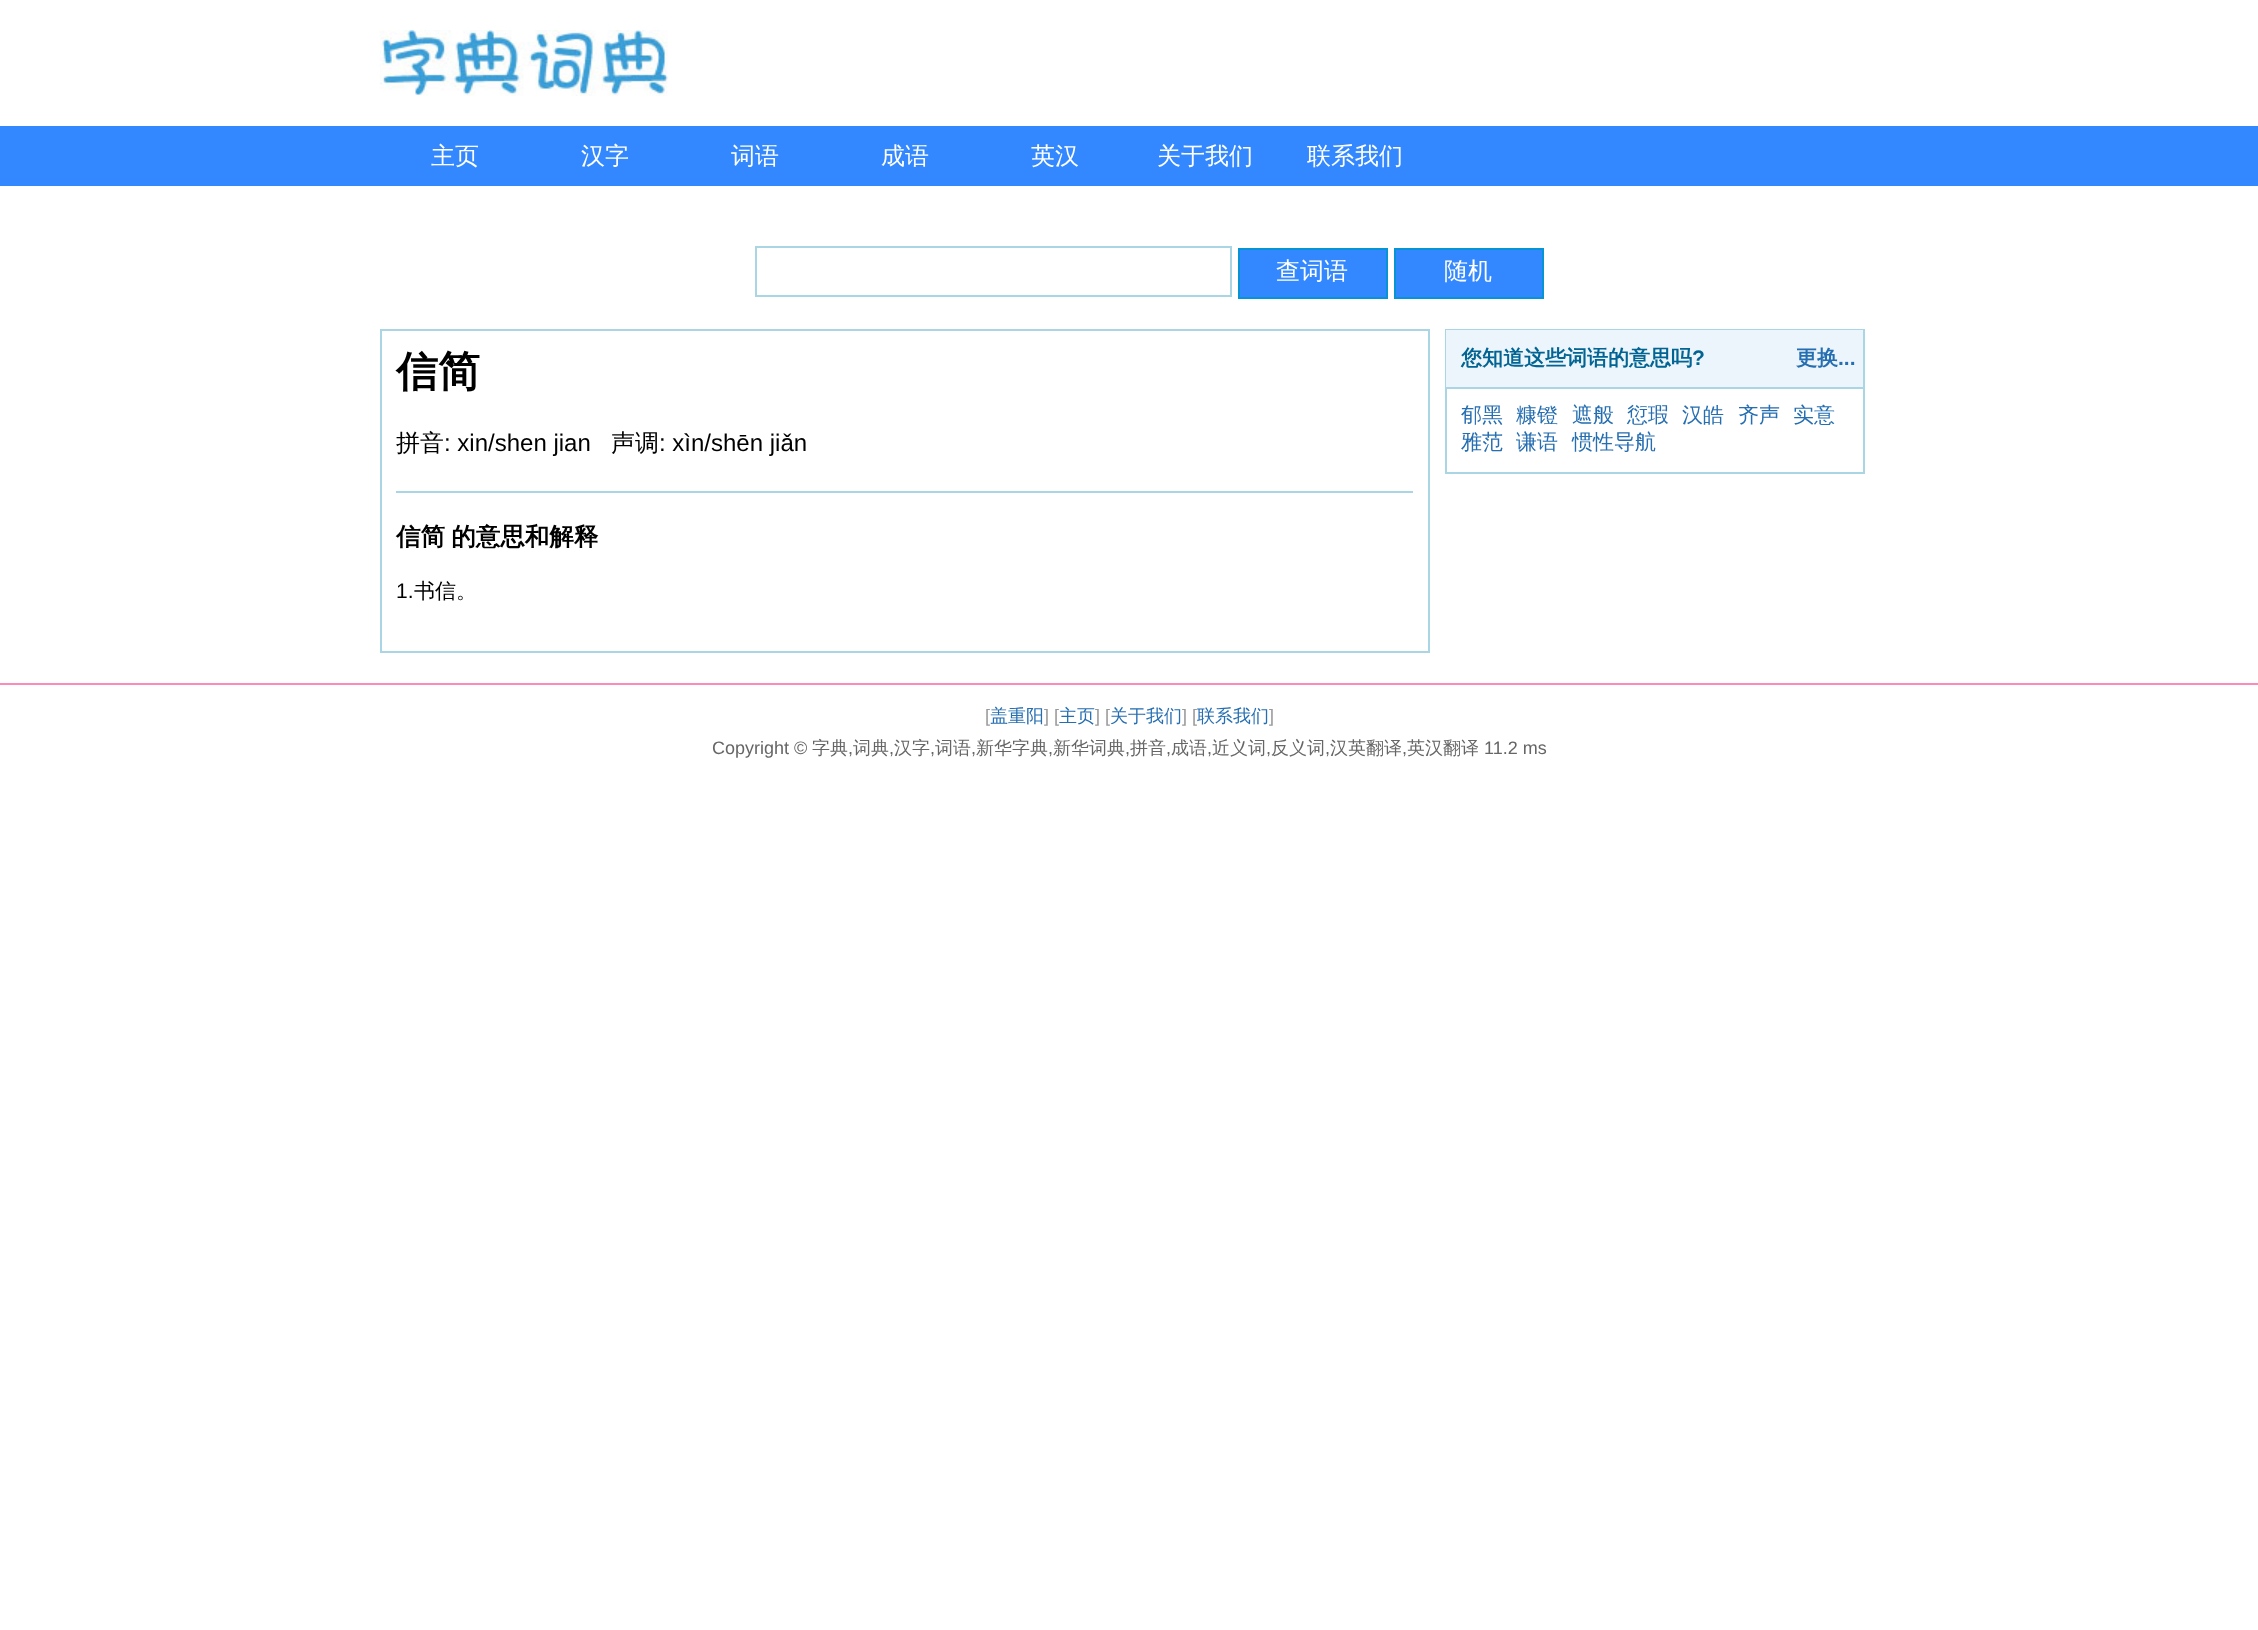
<svg xmlns="http://www.w3.org/2000/svg" width="2258" height="1630" viewBox="0 0 2258 1630">
  <rect width="100%" height="100%" fill="#fff"/>
  <image x="379" y="30" width="289" height="66" href="img/1.png"/>
  <path d="M0 126h2258v60H0z" fill="#38f"/>
  <path d="M756 247h475v49H756z" fill="none" stroke="#aad5e5" stroke-width="2"/>
  <path d="M1239 249h148v49H1239z" fill="#38f" stroke="#0794d4" stroke-width="2"/>
  <path d="M1395 249h148v49H1395z" fill="#38f" stroke="#0794d4" stroke-width="2"/>
  <path d="M381 330h1048v322H381z" fill="none" stroke="#aad5e5" stroke-width="2"/>
  <path d="M396 491h1017v2H396z" fill="#aad5e5"/>
  <path d="M1446 330h418v143H1446z" fill="none" stroke="#aad5e5" stroke-width="2"/>
  <path d="M1446 330h417v57H1446z" fill="#ecf5fb"/>
  <path d="M1446 387h417v2H1446z" fill="#aad5e5"/>
  <path d="M0 683h2258v2H0z" fill="#ff8ab7"/>
  <g font-family="WenQuanYi Zen Hei" font-size="24" font-weight="500" fill="#fff">
    <text x="431" y="164">主页</text>
    <text x="581" y="164">汉字</text>
    <text x="731" y="164">词语</text>
    <text x="881" y="164">成语</text>
    <text x="1031" y="164">英汉</text>
    <text x="1157" y="164">关于我们</text>
    <text x="1307" y="164">联系我们</text>
    <text x="1276" y="279">查词语</text>
    <text x="1444" y="279">随机</text>
  </g>
  <text x="396" y="386" font-family="WenQuanYi Zen Hei" font-size="42" font-weight="bold" fill="#000">信简</text>
  <text x="396" y="451" font-family="WenQuanYi Zen Hei" font-size="24" font-weight="500" fill="#000">拼音</text>
  <text x="444" y="451" font-family="Liberation Sans" font-size="24" fill="#000">: xin/shen jian</text>
  <text x="611" y="451" font-family="WenQuanYi Zen Hei" font-size="24" font-weight="500" fill="#000">声调</text>
  <text x="659" y="451" font-family="Liberation Sans" font-size="24" fill="#000">: xìn/shēn jiǎn</text>
  <text x="396" y="545" word-spacing="-1" font-family="WenQuanYi Zen Hei" font-size="24.5" font-weight="bold" fill="#000">信简 的意思和解释</text>
  <text x="396" y="598" font-family="Liberation Sans" font-size="21" fill="#000">1.</text>
  <text x="414" y="598" font-family="WenQuanYi Zen Hei" font-size="21" font-weight="500" fill="#000">书信。</text>
  <text x="1461" y="365" font-family="WenQuanYi Zen Hei" font-size="21" font-weight="bold" fill="#016493">您知道这些词语的意思吗</text>
  <text x="1692" y="365" font-family="Liberation Sans" font-size="21" font-weight="bold" fill="#016493">?</text>
  <text x="1796" y="365" font-family="WenQuanYi Zen Hei" font-size="21" font-weight="bold" fill="#256eb1">更换</text>
  <text x="1838" y="365" font-family="Liberation Sans" font-size="21" font-weight="bold" fill="#256eb1">...</text>
  <g font-family="WenQuanYi Zen Hei" font-size="21" font-weight="500" fill="#256eb1">
    <text x="1461" y="422">郁黑</text>
    <text x="1516" y="422">糠镫</text>
    <text x="1572" y="422">遮般</text>
    <text x="1627" y="422">愆瑕</text>
    <text x="1682" y="422">汉皓</text>
    <text x="1738" y="422">齐声</text>
    <text x="1793" y="422">实意</text>
    <text x="1461" y="449">雅范</text>
    <text x="1516" y="449">谦语</text>
    <text x="1572" y="449">惯性导航</text>
  </g>
  <text x="985" y="722" font-family="Liberation Sans" font-size="18" fill="#999">[</text>
  <text x="990" y="722" font-family="WenQuanYi Zen Hei" font-size="18" font-weight="500" fill="#256eb1">盖重阳</text>
  <text x="1044" y="722" font-family="Liberation Sans" font-size="18" fill="#999">] [</text>
  <text x="1059" y="722" font-family="WenQuanYi Zen Hei" font-size="18" font-weight="500" fill="#256eb1">主页</text>
  <text x="1095" y="722" font-family="Liberation Sans" font-size="18" fill="#999">] [</text>
  <text x="1110" y="722" font-family="WenQuanYi Zen Hei" font-size="18" font-weight="500" fill="#256eb1">关于我们</text>
  <text x="1182" y="722" font-family="Liberation Sans" font-size="18" fill="#999">] [</text>
  <text x="1197" y="722" font-family="WenQuanYi Zen Hei" font-size="18" font-weight="500" fill="#256eb1">联系我们</text>
  <text x="1269" y="722" font-family="Liberation Sans" font-size="18" fill="#999">]</text>
  <text x="712" y="754" font-family="Liberation Sans" font-size="18" fill="#666">Copyright ©</text>
  <text x="812" y="754" font-family="WenQuanYi Zen Hei" font-size="18" font-weight="500" fill="#666">字典</text>
  <text x="848" y="754" font-family="Liberation Sans" font-size="18" fill="#666">,</text>
  <text x="853" y="754" font-family="WenQuanYi Zen Hei" font-size="18" font-weight="500" fill="#666">词典</text>
  <text x="889" y="754" font-family="Liberation Sans" font-size="18" fill="#666">,</text>
  <text x="894" y="754" font-family="WenQuanYi Zen Hei" font-size="18" font-weight="500" fill="#666">汉字</text>
  <text x="930" y="754" font-family="Liberation Sans" font-size="18" fill="#666">,</text>
  <text x="935" y="754" font-family="WenQuanYi Zen Hei" font-size="18" font-weight="500" fill="#666">词语</text>
  <text x="971" y="754" font-family="Liberation Sans" font-size="18" fill="#666">,</text>
  <text x="976" y="754" font-family="WenQuanYi Zen Hei" font-size="18" font-weight="500" fill="#666">新华字典</text>
  <text x="1048" y="754" font-family="Liberation Sans" font-size="18" fill="#666">,</text>
  <text x="1053" y="754" font-family="WenQuanYi Zen Hei" font-size="18" font-weight="500" fill="#666">新华词典</text>
  <text x="1125" y="754" font-family="Liberation Sans" font-size="18" fill="#666">,</text>
  <text x="1130" y="754" font-family="WenQuanYi Zen Hei" font-size="18" font-weight="500" fill="#666">拼音</text>
  <text x="1166" y="754" font-family="Liberation Sans" font-size="18" fill="#666">,</text>
  <text x="1171" y="754" font-family="WenQuanYi Zen Hei" font-size="18" font-weight="500" fill="#666">成语</text>
  <text x="1207" y="754" font-family="Liberation Sans" font-size="18" fill="#666">,</text>
  <text x="1212" y="754" font-family="WenQuanYi Zen Hei" font-size="18" font-weight="500" fill="#666">近义词</text>
  <text x="1266" y="754" font-family="Liberation Sans" font-size="18" fill="#666">,</text>
  <text x="1271" y="754" font-family="WenQuanYi Zen Hei" font-size="18" font-weight="500" fill="#666">反义词</text>
  <text x="1325" y="754" font-family="Liberation Sans" font-size="18" fill="#666">,</text>
  <text x="1330" y="754" font-family="WenQuanYi Zen Hei" font-size="18" font-weight="500" fill="#666">汉英翻译</text>
  <text x="1402" y="754" font-family="Liberation Sans" font-size="18" fill="#666">,</text>
  <text x="1407" y="754" font-family="WenQuanYi Zen Hei" font-size="18" font-weight="500" fill="#666">英汉翻译</text>
  <text x="1484" y="754" font-family="Liberation Sans" font-size="18" fill="#666">11.2 ms</text>
</svg>
